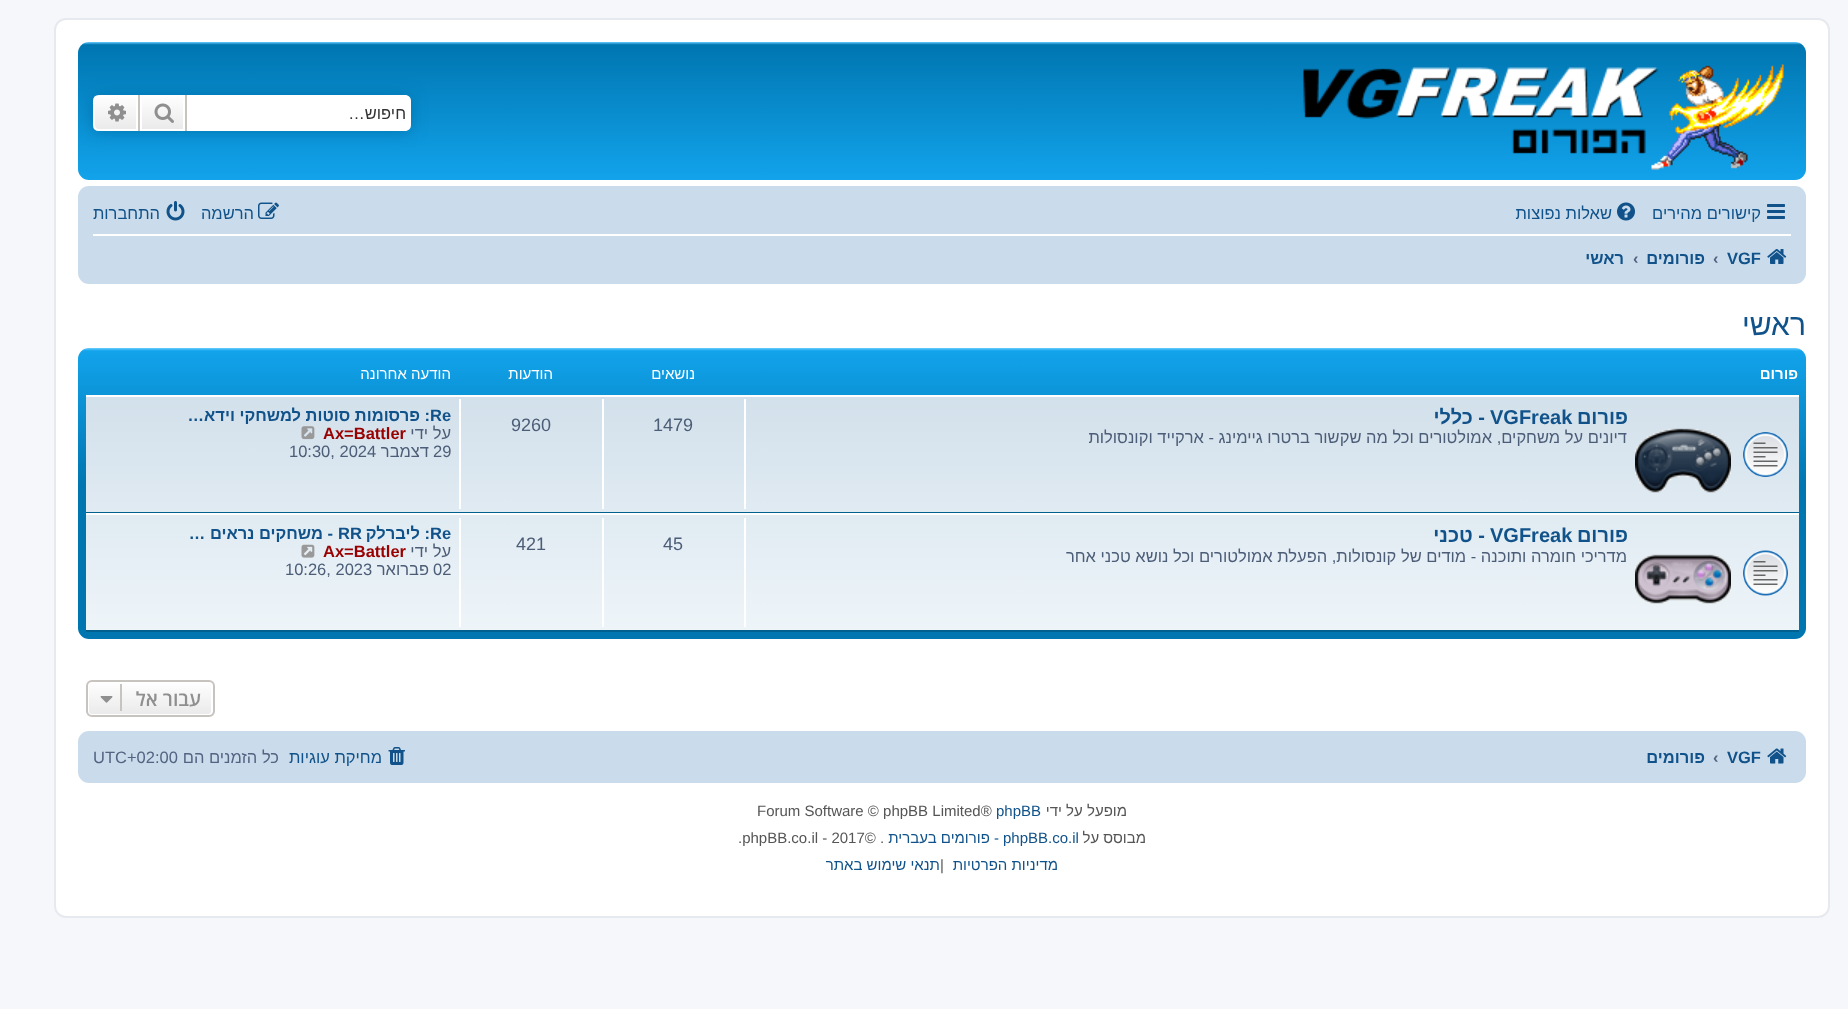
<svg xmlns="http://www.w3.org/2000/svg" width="1848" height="1009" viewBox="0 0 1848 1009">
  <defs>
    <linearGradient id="g1" gradientUnits="userSpaceOnUse" x1="942" y1="42" x2="942" y2="180"><stop offset="0" stop-color="#6aceff"/><stop offset="0.02" stop-color="#0076b1"/><stop offset="1" stop-color="#12a3eb"/><stop offset="1" stop-color="#12a3eb"/></linearGradient>
    <linearGradient id="g2" gradientUnits="userSpaceOnUse" x1="162" y1="95" x2="162" y2="131"><stop offset="0" stop-color="#fff"/><stop offset="1" stop-color="#e9e9e9"/></linearGradient>
    <linearGradient id="g3" gradientUnits="userSpaceOnUse" x1="116" y1="95" x2="116" y2="131"><stop offset="0" stop-color="#fff"/><stop offset="1" stop-color="#e9e9e9"/></linearGradient>
    <linearGradient id="g4" gradientUnits="userSpaceOnUse" x1="942" y1="348" x2="942" y2="639"><stop offset="0" stop-color="#6aceff"/><stop offset="0.01" stop-color="#12a3eb"/><stop offset="0.47" stop-color="#0076b1"/><stop offset="1" stop-color="#0076b1"/></linearGradient>
    <linearGradient id="g5" gradientUnits="userSpaceOnUse" x1="942" y1="394" x2="942" y2="632"><stop offset="0" stop-color="#d2e0eb"/><stop offset="1" stop-color="#eef5f9"/></linearGradient>
    <clipPath id="clip1"><rect x="86" y="680" width="129" height="37" rx="6"/></clipPath>
    <linearGradient id="g6" gradientUnits="userSpaceOnUse" x1="150" y1="681" x2="150" y2="716"><stop offset="0" stop-color="#fff"/><stop offset="1" stop-color="#e9e9e9"/></linearGradient>
  </defs>
  <rect width="100%" height="100%" fill="#f5f7fa"/>
  <rect x="55" y="19" width="1774" height="898" rx="11" fill="#fff" stroke="#e6e9ed" stroke-width="2"/>
  <rect x="78" y="42" width="1728" height="138" rx="11" fill="url(#g1)"/>
  <image x="1303" y="64" width="481" height="106" href="img/1.png"/>
  <rect x="93" y="95" width="318" height="36" rx="6" fill="#0075b0" filter="blur(7.5px)"/>
  <path d="M186 95H405C408.5 95 411 97.5 411 101V125C411 128.5 408.5 131 405 131H186Z" fill="#fff"/>
  <path d="M142 97h41v32H142z" fill="url(#g2)"/>
  <path d="M141 96h43v34H141z" fill="none" stroke="#fff" stroke-width="2"/>
  <path d="M185 95h2v36H185z" fill="#c7c3bf"/>
  <path d="M138 95h2v36H138z" fill="#c7c3bf"/>
  <image x="154" y="103" width="20" height="20" href="img/2.png"/>
  <path d="M99 96H137V130H99C96 130 94 128 94 125V101C94 98 96 96 99 96Z" fill="url(#g3)" stroke="#fff" stroke-width="2"/>
  <image x="108" y="103" width="18" height="19" href="img/3.png"/>
  <rect x="78" y="186" width="1728" height="98" rx="11" fill="#cadceb"/>
  <image x="1767" y="204" width="18" height="15" href="img/4.png"/>
  <image x="1617" y="202" width="18" height="19" href="img/5.png"/>
  <image x="258" y="202" width="21" height="17" href="img/6.png"/>
  <image x="166" y="201" width="19" height="20" href="img/7.png"/>
  <path d="M93 234h1698v2H93z" fill="#fff"/>
  <image x="1767" y="249" width="20" height="15" href="img/8.png"/>
  <rect x="78" y="348" width="1728" height="291" rx="11" fill="url(#g4)"/>
  <path d="M86 397h1713v233H86z" fill="url(#g5)"/>
  <path d="M86 395h1713v2H86z" fill="#fff"/>
  <path d="M86 512h1713v1H86z" fill="#00608f"/>
  <image x="1743" y="432" width="45" height="45" href="img/9.png"/>
  <image x="1635" y="428" width="96" height="65" href="img/10.png"/>
  <path d="M744 399h2v110H744z" fill="#fff"/>
  <path d="M602 399h2v110H602z" fill="#fff"/>
  <path d="M459 399h2v110H459z" fill="#fff"/>
  <image x="301" y="426" width="14" height="14" href="img/11.png"/>
  <path d="M86 513h1713v2H86z" fill="#fff"/>
  <path d="M86 630h1713v2H86z" fill="#00608f"/>
  <image x="1743" y="550" width="45" height="46" href="img/12.png"/>
  <image x="1635" y="554" width="96" height="50" href="img/13.png"/>
  <path d="M744 518h2v109H744z" fill="#fff"/>
  <path d="M602 518h2v109H602z" fill="#fff"/>
  <path d="M459 518h2v109H459z" fill="#fff"/>
  <image x="301" y="544" width="14" height="14" href="img/14.png"/>
  <g clip-path="url(#clip1)">
    <path d="M86 681h129v35H86z" fill="url(#g6)"/>
  </g>
  <rect x="88" y="682" width="124" height="33" rx="4" fill="none" stroke="#fff" stroke-width="2"/>
  <rect x="87" y="681" width="127" height="35" rx="5" fill="none" stroke="#c7c3bf" stroke-width="2"/>
  <path d="M120 684h2v27H120z" fill="#c7c3bf"/>
  <image x="100" y="696" width="13" height="7" href="img/15.png"/>
  <rect x="78" y="731" width="1728" height="52" rx="11" fill="#cadceb"/>
  <image x="1767" y="748" width="20" height="16" href="img/16.png"/>
  <image x="388" y="747" width="17" height="18" href="img/17.png"/>
  <text x="406" y="119" font-family="Liberation Sans" font-size="16.5" direction="rtl" fill="#333">חיפוש…</text>
  <g font-family="Liberation Sans" font-size="16.5" direction="rtl" fill="#105289">
    <text x="1761" y="219">קישורים מהירים</text>
    <text x="1612" y="219">שאלות נפוצות</text>
    <text x="254" y="219">הרשמה</text>
    <text x="160" y="219">התחברות</text>
  </g>
  <text x="1727" y="264" font-family="Liberation Sans" font-size="16.5" font-weight="bold" fill="#105289">VGF</text>
  <text x="1713" y="264" font-family="Liberation Sans" font-size="16.5" font-weight="bold" fill="#536482">‹</text>
  <text x="1705" y="264" font-family="Liberation Sans" font-size="16.5" font-weight="bold" direction="rtl" fill="#105289">פורומים</text>
  <text x="1633" y="264" font-family="Liberation Sans" font-size="16.5" font-weight="bold" fill="#536482">‹</text>
  <text x="1624" y="264" font-family="Liberation Sans" font-size="16.5" font-weight="bold" direction="rtl" fill="#105289">ראשי</text>
  <text x="1806" y="335" font-family="Liberation Sans" font-size="30" direction="rtl" fill="#105289">ראשי</text>
  <text x="1798" y="379" font-family="Liberation Sans" font-size="15" font-weight="bold" direction="rtl" fill="#fff">פורום</text>
  <g font-family="Liberation Sans" font-size="15" direction="rtl" fill="#fff">
    <text x="695" y="379">נושאים</text>
    <text x="553" y="379">הודעות</text>
    <text x="451" y="379">הודעה אחרונה</text>
  </g>
  <text x="1628" y="424" font-family="Liberation Sans" font-size="20" font-weight="bold" direction="rtl" fill="#105289">פורום</text>
  <text x="1490" y="424" font-family="Liberation Sans" font-size="20" font-weight="bold" fill="#105289">VGFreak</text>
  <text x="1485" y="424" font-family="Liberation Sans" font-size="20" font-weight="bold" direction="rtl" fill="#105289">- כללי</text>
  <text x="1627" y="443" font-family="Liberation Sans" font-size="16.5" direction="rtl" fill="#4c5d77">דיונים על משחקים, אמולטורים וכל מה שקשור ברטרו גיימינג - ארקייד וקונסולות</text>
  <g font-family="Liberation Sans" font-size="18" fill="#4c5d77">
    <text x="653" y="431">1479</text>
    <text x="511" y="431">9260</text>
  </g>
  <text x="430" y="421" font-family="Liberation Sans" font-size="16.5" font-weight="bold" fill="#105289">Re</text>
  <text x="430" y="421" font-family="Liberation Sans" font-size="16.5" font-weight="bold" direction="rtl" fill="#105289">: פרסומות סוטות למשחקי וידא…</text>
  <text x="451" y="439" font-family="Liberation Sans" font-size="16.5" direction="rtl" fill="#4c5d77">על ידי</text>
  <text x="323" y="439" font-family="Liberation Sans" font-size="16.5" font-weight="bold" fill="#900">Ax=Battler</text>
  <text x="433" y="457" font-family="Liberation Sans" font-size="16.5" fill="#4c5d77">29</text>
  <text x="429" y="457" font-family="Liberation Sans" font-size="16.5" direction="rtl" fill="#4c5d77">דצמבר</text>
  <text x="289" y="457" font-family="Liberation Sans" font-size="16.5" fill="#4c5d77">10:30, 2024</text>
  <text x="1628" y="542" font-family="Liberation Sans" font-size="20" font-weight="bold" direction="rtl" fill="#105289">פורום</text>
  <text x="1490" y="542" font-family="Liberation Sans" font-size="20" font-weight="bold" fill="#105289">VGFreak</text>
  <text x="1485" y="542" font-family="Liberation Sans" font-size="20" font-weight="bold" direction="rtl" fill="#105289">- טכני</text>
  <text x="1627" y="562" font-family="Liberation Sans" font-size="16.5" direction="rtl" fill="#4c5d77">מדריכי חומרה ותוכנה - מודים של קונסולות, הפעלת אמולטורים וכל נושא טכני אחר</text>
  <g font-family="Liberation Sans" font-size="18" fill="#4c5d77">
    <text x="663" y="550">45</text>
    <text x="516" y="550">421</text>
  </g>
  <text x="430" y="539" font-family="Liberation Sans" font-size="16.5" font-weight="bold" fill="#105289">Re</text>
  <text x="430" y="539" font-family="Liberation Sans" font-size="16.5" font-weight="bold" direction="rtl" fill="#105289">: ליברלק</text>
  <text x="338" y="539" font-family="Liberation Sans" font-size="16.5" font-weight="bold" fill="#105289">RR</text>
  <text x="333" y="539" font-family="Liberation Sans" font-size="16.5" font-weight="bold" direction="rtl" fill="#105289">- משחקים נראים …</text>
  <text x="451" y="557" font-family="Liberation Sans" font-size="16.5" direction="rtl" fill="#4c5d77">על ידי</text>
  <text x="323" y="557" font-family="Liberation Sans" font-size="16.5" font-weight="bold" fill="#900">Ax=Battler</text>
  <text x="433" y="575" font-family="Liberation Sans" font-size="16.5" fill="#4c5d77">02</text>
  <text x="429" y="575" font-family="Liberation Sans" font-size="16.5" direction="rtl" fill="#4c5d77">פברואר</text>
  <text x="285" y="575" font-family="Liberation Sans" font-size="16.5" fill="#4c5d77">10:26, 2023</text>
  <text x="201" y="706" font-family="Open Sans" font-size="19.5" font-weight="600" direction="rtl" fill="#8f8f8f">עבור אל</text>
  <text x="1727" y="763" font-family="Liberation Sans" font-size="16.5" font-weight="bold" fill="#105289">VGF</text>
  <text x="1713" y="763" font-family="Liberation Sans" font-size="16.5" font-weight="bold" fill="#536482">‹</text>
  <text x="1705" y="763" font-family="Liberation Sans" font-size="16.5" font-weight="bold" direction="rtl" fill="#105289">פורומים</text>
  <text x="382" y="763" font-family="Liberation Sans" font-size="16.5" direction="rtl" fill="#105289">מחיקת עוגיות</text>
  <text x="279" y="763" font-family="Liberation Sans" font-size="16.5" direction="rtl" fill="#536482">כל הזמנים הם</text>
  <text x="93" y="763" font-family="Liberation Sans" font-size="16.5" fill="#536482">UTC+02:00</text>
  <text x="1127" y="816" font-family="Liberation Sans" font-size="15" direction="rtl" fill="#555">מופעל על ידי</text>
  <text x="996" y="816" font-family="Liberation Sans" font-size="15" fill="#105289">phpBB</text>
  <text x="757" y="816" font-family="Liberation Sans" font-size="15" fill="#555">Forum Software © phpBB Limited®</text>
  <text x="1146" y="843" font-family="Liberation Sans" font-size="15" direction="rtl" fill="#555">מבוסס על</text>
  <text x="1003" y="843" font-family="Liberation Sans" font-size="15" fill="#105289">phpBB.co.il</text>
  <text x="999" y="843" font-family="Liberation Sans" font-size="15" direction="rtl" fill="#105289">- פורומים בעברית</text>
  <g font-family="Liberation Sans" font-size="15" fill="#555">
    <text x="880" y="843">.</text>
    <text x="738" y="843">.phpBB.co.il - 2017©</text>
  </g>
  <text x="1058" y="870" font-family="Liberation Sans" font-size="15" direction="rtl" fill="#105289">מדיניות הפרטיות</text>
  <text x="940" y="870" font-family="Liberation Sans" font-size="15" fill="#555">|</text>
  <text x="940" y="870" font-family="Liberation Sans" font-size="15" direction="rtl" fill="#105289">תנאי שימוש באתר</text>
</svg>
